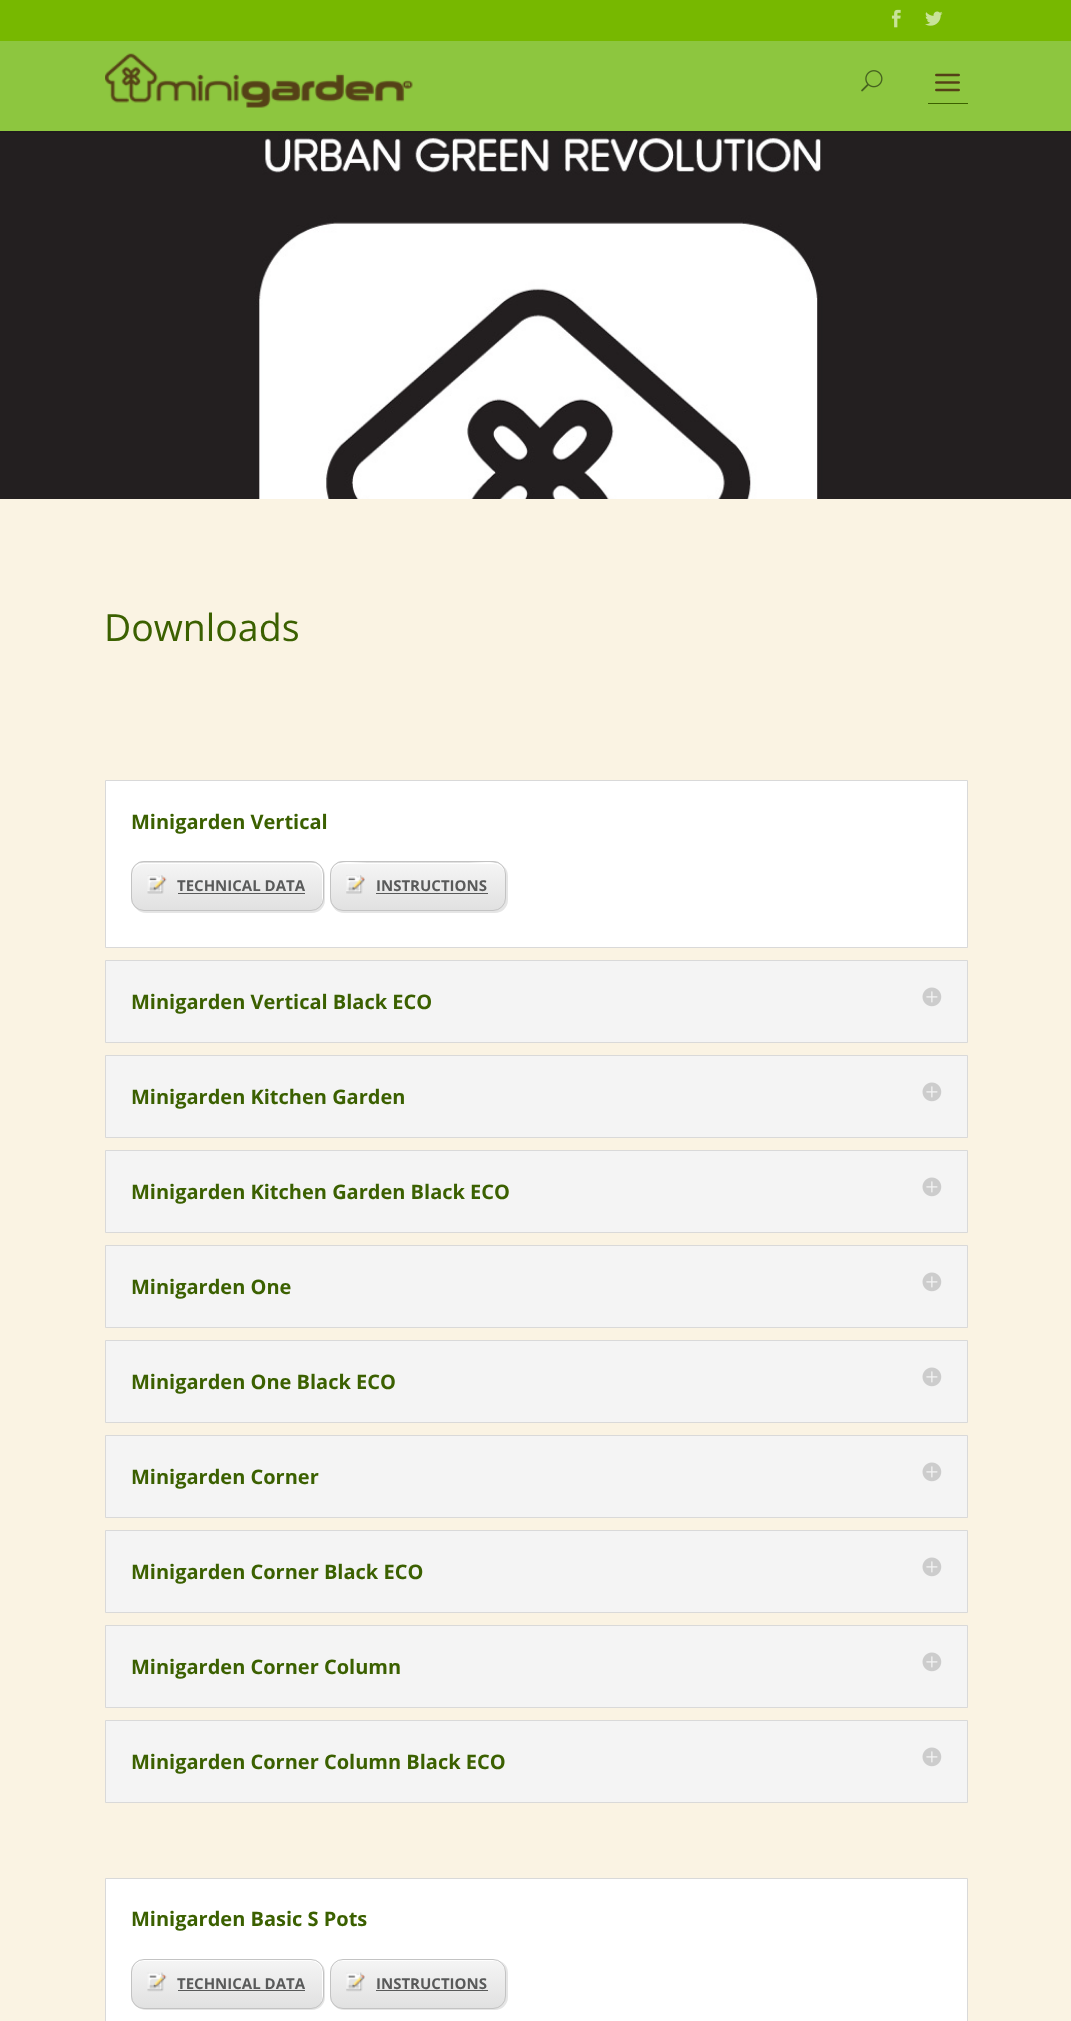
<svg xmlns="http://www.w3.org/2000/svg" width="1071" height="2021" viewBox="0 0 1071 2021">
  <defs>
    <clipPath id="clip1"><rect x="131" y="861" width="193" height="50" rx="13"/></clipPath>
    <linearGradient id="g1" gradientUnits="userSpaceOnUse" x1="228" y1="815" x2="228" y2="863"><stop offset="0" stop-color="#f5f5f5"/><stop offset="1" stop-color="#e1e1e1"/></linearGradient>
    <linearGradient id="g2" gradientUnits="userSpaceOnUse" x1="228" y1="863" x2="228" y2="910"><stop offset="0" stop-color="#f5f5f5"/><stop offset="1" stop-color="#e1e1e1"/></linearGradient>
    <clipPath id="clip2"><rect x="330" y="861" width="176" height="50" rx="13"/></clipPath>
    <linearGradient id="g3" gradientUnits="userSpaceOnUse" x1="418" y1="815" x2="418" y2="863"><stop offset="0" stop-color="#f5f5f5"/><stop offset="1" stop-color="#e1e1e1"/></linearGradient>
    <linearGradient id="g4" gradientUnits="userSpaceOnUse" x1="418" y1="863" x2="418" y2="910"><stop offset="0" stop-color="#f5f5f5"/><stop offset="1" stop-color="#e1e1e1"/></linearGradient>
    <clipPath id="clip3"><rect x="131" y="1959" width="193" height="50" rx="13"/></clipPath>
    <linearGradient id="g5" gradientUnits="userSpaceOnUse" x1="228" y1="1960" x2="228" y2="2008"><stop offset="0" stop-color="#f5f5f5"/><stop offset="1" stop-color="#e1e1e1"/></linearGradient>
    <clipPath id="clip4"><rect x="330" y="1959" width="176" height="50" rx="13"/></clipPath>
    <linearGradient id="g6" gradientUnits="userSpaceOnUse" x1="418" y1="1960" x2="418" y2="2008"><stop offset="0" stop-color="#f5f5f5"/><stop offset="1" stop-color="#e1e1e1"/></linearGradient>
  </defs>
  <rect width="100%" height="100%" fill="#77b800"/>
  <image x="891" y="9" width="10" height="19" href="img/1.png"/>
  <image x="925" y="11" width="18" height="15" href="img/2.png"/>
  <path d="M0 131h1071v2H0z" fill="#201c1d"/>
  <path d="M0 41h1071v90H0z" fill="#8dc63f"/>
  <image x="105" y="53" width="308" height="55" href="img/3.png"/>
  <image x="861" y="70" width="22" height="22" href="img/4.png"/>
  <image x="935" y="73" width="25" height="19" href="img/5.png"/>
  <path d="M928 103h40v1H928z" fill="#3b6000"/>
  <image x="0" y="133" width="1071" height="366" href="img/6.png"/>
  <path d="M0 499h1071v1522H0z" fill="#faf3e3"/>
  <path d="M105.5 780.5h862v167H105.5z" fill="#fff" stroke="#d9d9d9"/>
  <rect x="133" y="863" width="192" height="50" rx="13" fill="#0000001a" filter="blur(0.5px)"/>
  <g clip-path="url(#clip1)">
    <path d="M131 861h193v2H131z" fill="url(#g1)"/>
    <path d="M131 863h193v47H131z" fill="url(#g2)"/>
  </g>
  <path d="M144 864H311C317 864 322 869 322 875V900C322 903 321 905 319 907C321 905 323 902 323 899V874C323 868 318 863 312 863H144C140 863 136 865 134 869C137 866 140 864 144 864Z" fill="#ffffffe6"/>
  <rect x="131.5" y="861.5" width="192" height="49" rx="12.5" fill="none" stroke="#c3c3c3"/>
  <image x="147" y="875" width="20" height="19" href="img/7.png"/>
  <path d="M178 893h127v1H178z" fill="#595a5a"/>
  <rect x="331" y="863" width="177" height="50" rx="13" fill="#0000001a" filter="blur(0.5px)"/>
  <g clip-path="url(#clip2)">
    <path d="M330 861h176v2H330z" fill="url(#g3)"/>
    <path d="M330 863h176v47H330z" fill="url(#g4)"/>
  </g>
  <path d="M342 864H494C500 864 505 869 505 875C505 857 479 863 469 863H367C357 863 331 857 331 875C331 869 336 864 342 864Z" fill="#ffffffe6"/>
  <rect x="330.5" y="861.5" width="175" height="49" rx="12.5" fill="none" stroke="#c3c3c3"/>
  <image x="346" y="875" width="19" height="19" href="img/8.png"/>
  <path d="M376 893h112v1H376z" fill="#595a5a"/>
  <path d="M105.5 960.5h862v82H105.5z" fill="#f4f4f4" stroke="#d9d9d9"/>
  <image x="922" y="987" width="20" height="20" href="img/9.png"/>
  <path d="M105.5 1055.5h862v82H105.5z" fill="#f4f4f4" stroke="#d9d9d9"/>
  <image x="922" y="1082" width="20" height="20" href="img/9.png"/>
  <path d="M105.5 1150.5h862v82H105.5z" fill="#f4f4f4" stroke="#d9d9d9"/>
  <image x="922" y="1177" width="20" height="20" href="img/9.png"/>
  <path d="M105.5 1245.5h862v82H105.5z" fill="#f4f4f4" stroke="#d9d9d9"/>
  <image x="922" y="1272" width="20" height="20" href="img/9.png"/>
  <path d="M105.5 1340.5h862v82H105.5z" fill="#f4f4f4" stroke="#d9d9d9"/>
  <image x="922" y="1367" width="20" height="20" href="img/9.png"/>
  <path d="M105.5 1435.5h862v82H105.5z" fill="#f4f4f4" stroke="#d9d9d9"/>
  <image x="922" y="1462" width="20" height="20" href="img/9.png"/>
  <path d="M105.5 1530.5h862v82H105.5z" fill="#f4f4f4" stroke="#d9d9d9"/>
  <image x="922" y="1557" width="20" height="20" href="img/9.png"/>
  <path d="M105.5 1625.5h862v82H105.5z" fill="#f4f4f4" stroke="#d9d9d9"/>
  <image x="922" y="1652" width="20" height="20" href="img/9.png"/>
  <path d="M105.5 1720.5h862v82H105.5z" fill="#f4f4f4" stroke="#d9d9d9"/>
  <image x="922" y="1747" width="20" height="20" href="img/9.png"/>
  <path d="M105.5 1878.5h862v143H105.5z" fill="#fff" stroke="#d9d9d9"/>
  <rect x="133" y="1960" width="192" height="50" rx="13" fill="#0000001a" filter="blur(0.5px)"/>
  <g clip-path="url(#clip3)">
    <path d="M131 1960h193v48H131z" fill="url(#g5)"/>
  </g>
  <path d="M144 1961H311C317 1961 322 1966 322 1972V1998C322 2001 321 2003 319 2005C321 2003 323 2000 323 1997V1971C323 1965 318 1960 312 1960H144C140 1960 136 1962 134 1966C137 1963 140 1961 144 1961Z" fill="#ffffffe6"/>
  <rect x="131.5" y="1959.5" width="192" height="49" rx="12.5" fill="none" stroke="#c3c3c3"/>
  <image x="147" y="1972" width="20" height="20" href="img/10.png"/>
  <path d="M178 1990h127v1H178z" fill="#595a5a"/>
  <rect x="331" y="1960" width="177" height="50" rx="13" fill="#0000001a" filter="blur(0.5px)"/>
  <g clip-path="url(#clip4)">
    <path d="M330 1960h176v48H330z" fill="url(#g6)"/>
  </g>
  <path d="M342 1961H494C500 1961 505 1966 505 1972C505 1954 479 1960 469 1960H367C357 1960 331 1954 331 1972C331 1966 336 1961 342 1961Z" fill="#ffffffe6"/>
  <rect x="330.5" y="1959.5" width="175" height="49" rx="12.5" fill="none" stroke="#c3c3c3"/>
  <image x="346" y="1972" width="19" height="20" href="img/11.png"/>
  <path d="M376 1990h112v1H376z" fill="#595a5a"/>
  <text x="104" y="641" font-family="Open Sans" font-size="37.5" fill="#3b6000">Downloads</text>
  <text x="131" y="829" font-family="Open Sans" font-size="20" font-weight="bold" fill="#3b6000">Minigarden Vertical</text>
  <g font-family="Open Sans" font-size="15" font-weight="bold" fill="#595a5a">
    <text x="177" y="891">TECHNICAL DATA</text>
    <text x="376" y="891">INSTRUCTIONS</text>
  </g>
  <g font-family="Open Sans" font-size="20" font-weight="bold" fill="#3b6000">
    <text x="131" y="1009">Minigarden Vertical Black ECO</text>
    <text x="131" y="1104">Minigarden Kitchen Garden</text>
    <text x="131" y="1199">Minigarden Kitchen Garden Black ECO</text>
    <text x="131" y="1294">Minigarden One</text>
    <text x="131" y="1389">Minigarden One Black ECO</text>
    <text x="131" y="1484">Minigarden Corner</text>
    <text x="131" y="1579">Minigarden Corner Black ECO</text>
    <text x="131" y="1674">Minigarden Corner Column</text>
    <text x="131" y="1769">Minigarden Corner Column Black ECO</text>
    <text x="131" y="1926">Minigarden Basic S Pots</text>
  </g>
  <g font-family="Open Sans" font-size="15" font-weight="bold" fill="#595a5a">
    <text x="177" y="1989">TECHNICAL DATA</text>
    <text x="376" y="1989">INSTRUCTIONS</text>
  </g>
</svg>
